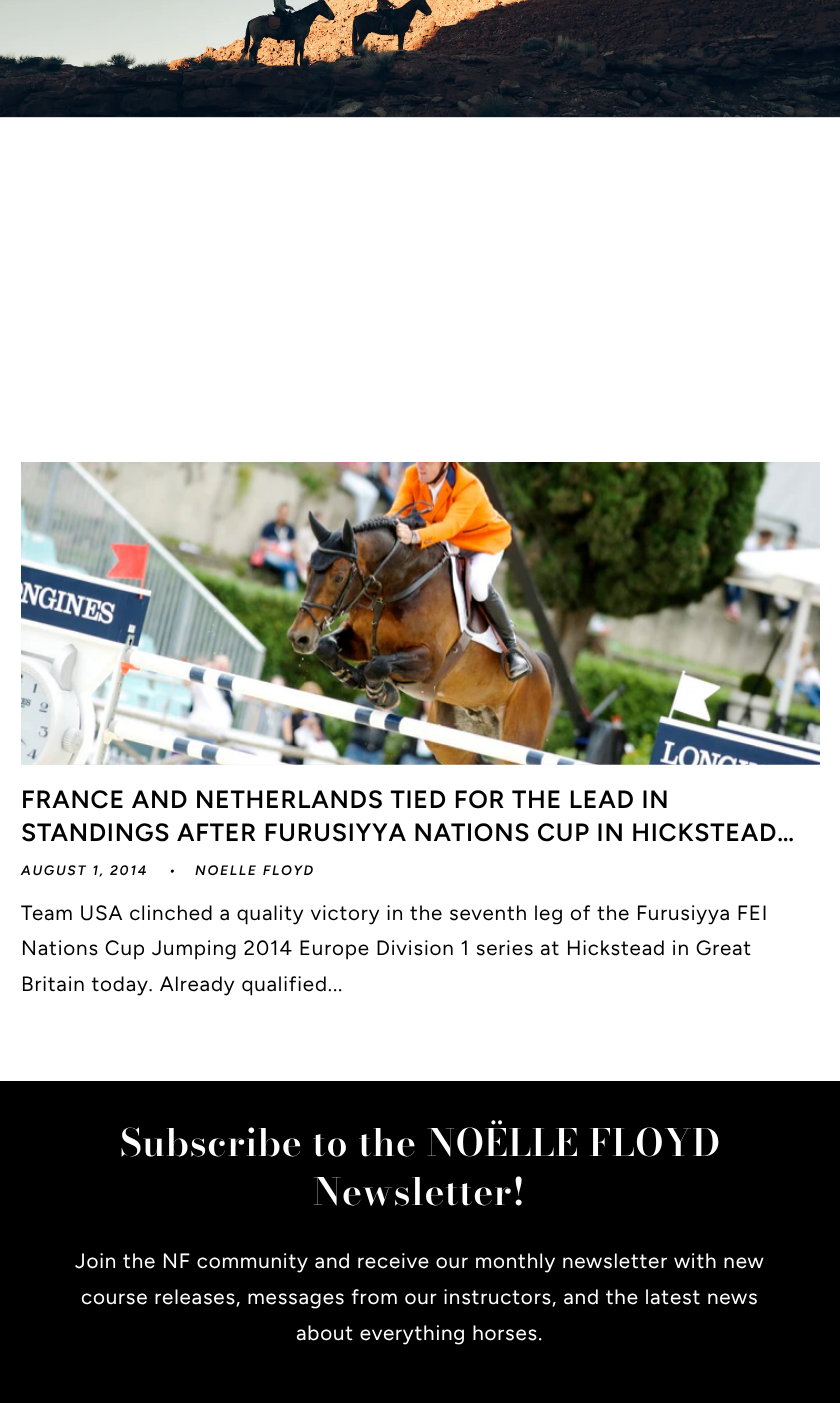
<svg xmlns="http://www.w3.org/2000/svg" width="840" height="1403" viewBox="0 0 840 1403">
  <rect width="100%" height="100%" fill="#fff"/>
  <path d="M0 117h840v1H0z" fill="#e6e6e6"/>
  <image x="0" y="0" width="840" height="118" href="img/1.png"/>
  <path d="M21 764h799v1H21z" fill="#e6e6e6"/>
  <image x="21" y="462" width="799" height="303" href="img/2.png"/>
  <path d="M0 1081h840v322H0z" fill="#000"/>
  <g font-family="Figtree" font-size="25" font-weight="600" letter-spacing="0.75" fill="#000">
    <text x="21" y="808">FRANCE AND NETHERLANDS TIED FOR THE LEAD IN</text>
    <text x="21" y="841">STANDINGS AFTER FURUSIYYA NATIONS CUP IN HICKSTEAD…</text>
  </g>
  <g font-family="Figtree" font-size="13.75" font-weight="600" font-style="italic" letter-spacing="1.75" fill="#000">
    <text x="21" y="875">AUGUST 1, 2014</text>
    <text x="169" y="875">•</text>
    <text x="195" y="875">NOELLE FLOYD</text>
  </g>
  <g font-family="Figtree" font-size="20.6" letter-spacing="0.83" fill="#000">
    <text x="21" y="920">Team USA clinched a quality victory in the seventh leg of the Furusiyya FEI</text>
    <text x="21" y="955">Nations Cup Jumping 2014 Europe Division 1 series at Hickstead in Great</text>
    <text x="21" y="991">Britain today. Already qualified...</text>
  </g>
  <g font-family="Bodoni Moda" font-size="37.5" font-weight="600" letter-spacing="0.75" fill="#fff">
    <text x="120" y="1156">Subscribe to the NOËLLE FLOYD</text>
    <text x="313" y="1205">Newsletter!</text>
  </g>
  <g font-family="Figtree" font-size="20.6" letter-spacing="0.83" fill="#fff">
    <text x="75" y="1268">Join the NF community and receive our monthly newsletter with new</text>
    <text x="81" y="1304">course releases, messages from our instructors, and the latest news</text>
    <text x="296" y="1340">about everything horses.</text>
  </g>
</svg>
